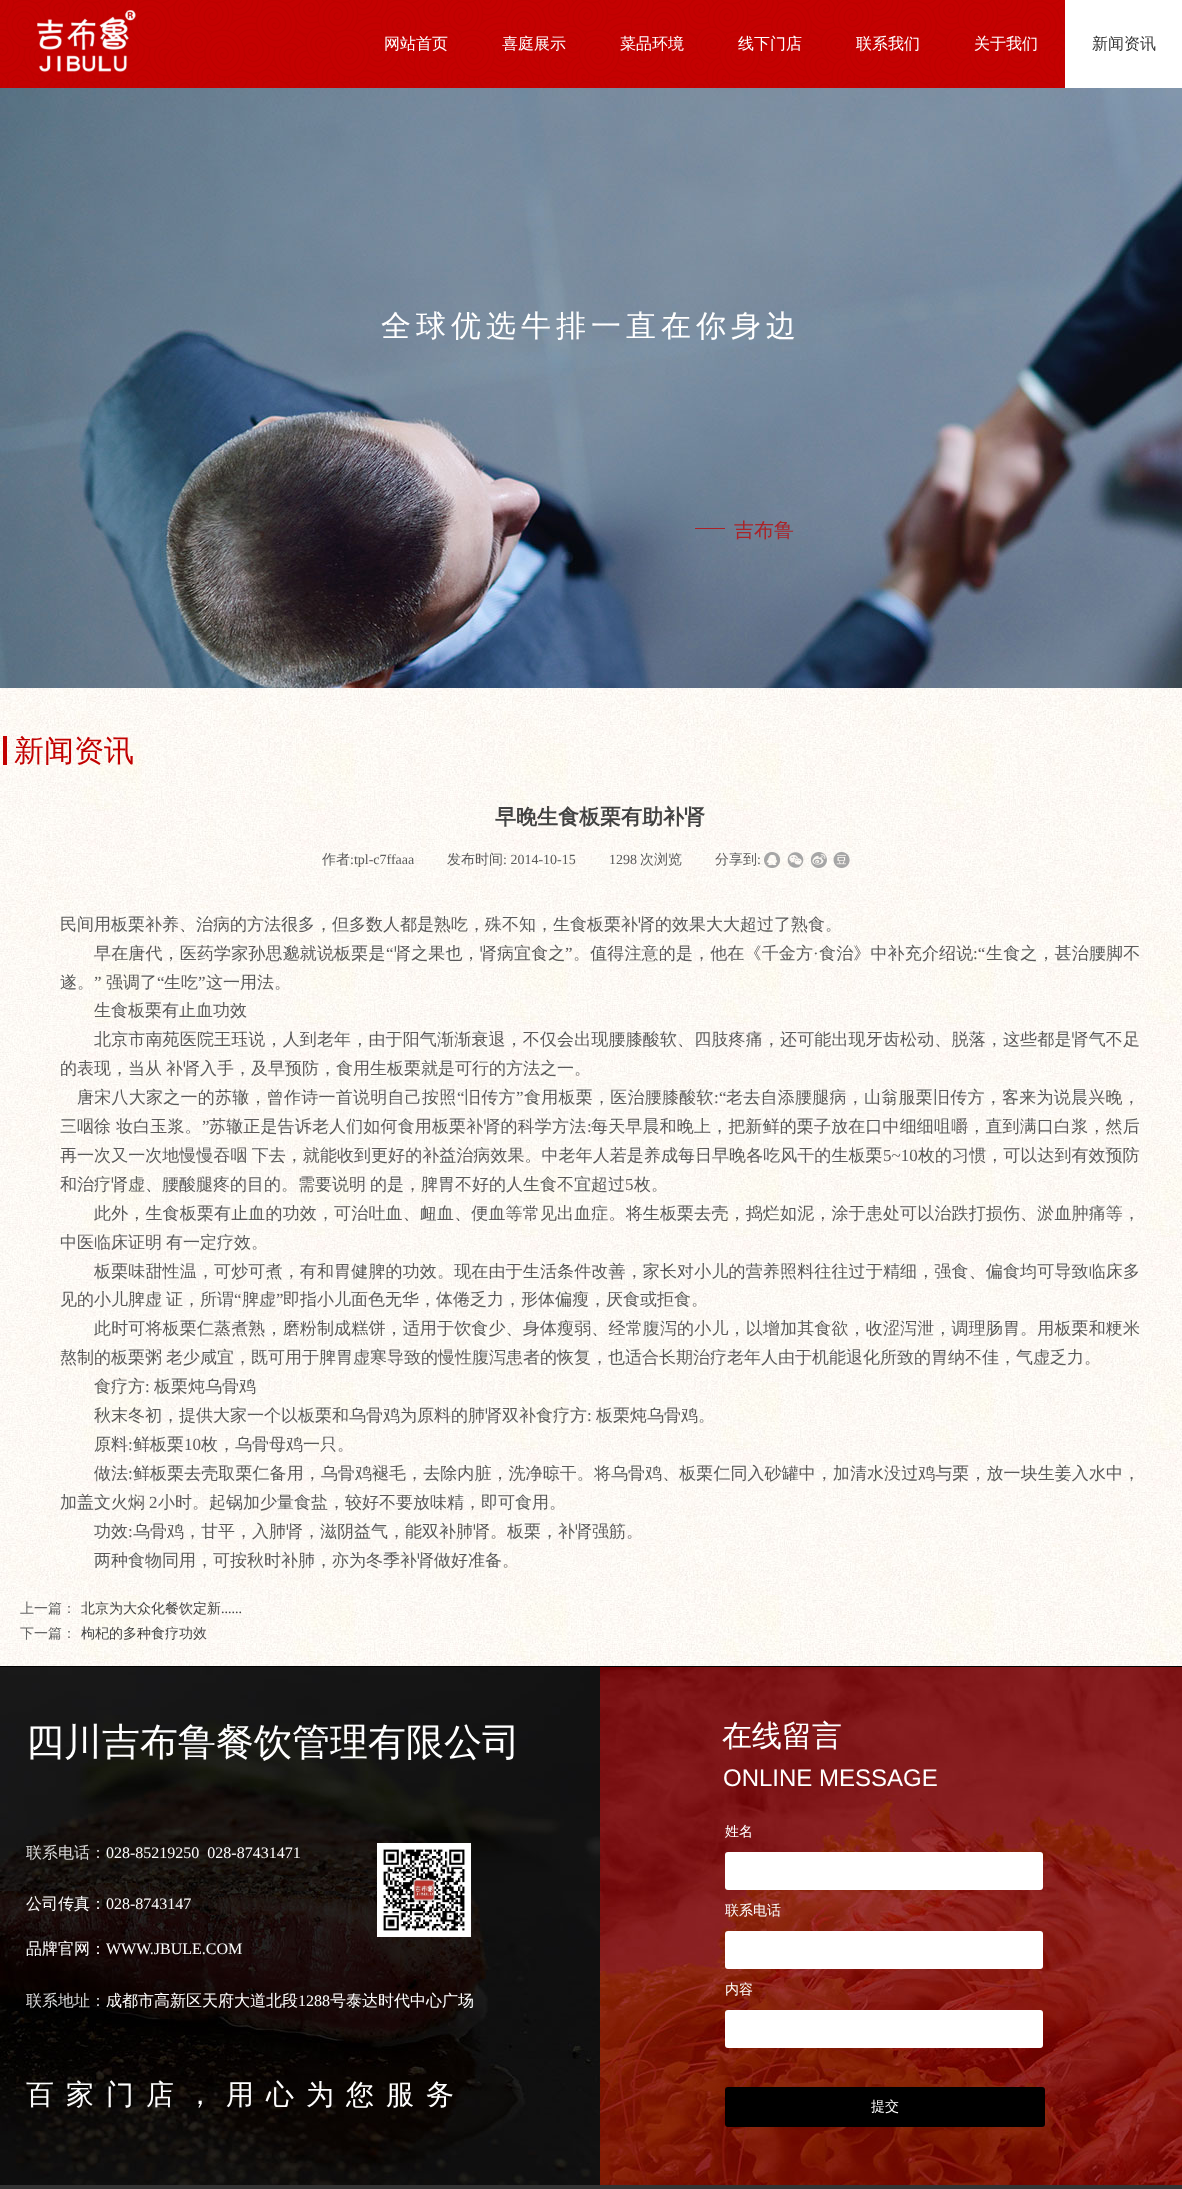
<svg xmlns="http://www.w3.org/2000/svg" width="1182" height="2189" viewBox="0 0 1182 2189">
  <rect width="100%" height="100%" fill="#fff"/>
  <image x="0" y="0" width="1065" height="88" href="img/1.png"/>
  <image x="37" y="10" width="99" height="62" href="img/2.png"/>
  <image x="0" y="88" width="1182" height="600" href="img/3.png"/>
  <path d="M695 528h30v1H695z" fill="#c20000ba"/>
  <image x="0" y="688" width="1182" height="978" href="img/8.png"/>
  <path d="M3 736h4v29H3z" fill="#c20000"/>
  <image x="764" y="852" width="17" height="16" href="img/4.png"/>
  <image x="787" y="852" width="17" height="16" href="img/5.png"/>
  <image x="810" y="852" width="17" height="16" href="img/6.png"/>
  <image x="833" y="852" width="17" height="16" href="img/7.png"/>
  <path d="M0 1666h1182v1H0z" fill="#000"/>
  <image x="0" y="1667" width="1182" height="518" href="img/9.png"/>
  <image x="377" y="1843" width="94" height="94" href="img/10.png"/>
  <rect x="725" y="1852" width="318" height="38" rx="3" fill="#fff"/>
  <rect x="725" y="1931" width="318" height="38" rx="3" fill="#fff"/>
  <rect x="725" y="2010" width="318" height="38" rx="3" fill="#fff"/>
  <rect x="725" y="2087" width="320" height="40" rx="3" fill="#000"/>
  <path d="M0 2185h1182v4H0z" fill="#333"/>
  <g font-family="WenQuanYi Zen Hei" font-size="16" font-weight="500" fill="#fff">
    <text x="384" y="49">网站首页</text>
    <text x="502" y="49">喜庭展示</text>
    <text x="620" y="49">菜品环境</text>
    <text x="738" y="49">线下门店</text>
    <text x="856" y="49">联系我们</text>
    <text x="974" y="49">关于我们</text>
  </g>
  <text x="1092" y="49" font-family="WenQuanYi Zen Hei" font-size="16" font-weight="500" fill="#333">新闻资讯</text>
  <text x="381" y="336" font-family="WenQuanYi Zen Hei" font-size="30" font-weight="500" letter-spacing="5" fill="#fff">全球优选牛排一直在你身边</text>
  <text x="734" y="537" font-family="WenQuanYi Zen Hei" font-size="20" font-weight="500" fill="#ab2328">吉布鲁</text>
  <text x="14" y="761" font-family="WenQuanYi Zen Hei" font-size="30" font-weight="500" fill="#c20000">新闻资讯</text>
  <text x="495" y="824" font-family="WenQuanYi Zen Hei" font-size="21" font-weight="bold" fill="#434343">早晚生食板栗有助补肾</text>
  <text x="322" y="864" font-family="WenQuanYi Zen Hei" font-size="14" font-weight="500" fill="#5a5a5a">作者</text>
  <text x="350" y="864" font-family="Liberation Serif" font-size="14" fill="#5a5a5a">:tpl-c7ffaaa</text>
  <text x="447" y="864" font-family="WenQuanYi Zen Hei" font-size="14" font-weight="500" fill="#5a5a5a">发布时间</text>
  <g font-family="Liberation Serif" font-size="14" fill="#5a5a5a">
    <text x="503" y="864">: 2014-10-15</text>
    <text x="609" y="864">1298</text>
  </g>
  <g font-family="WenQuanYi Zen Hei" font-size="14" font-weight="500" fill="#5a5a5a">
    <text x="640" y="864">次浏览</text>
    <text x="715" y="864">分享到</text>
  </g>
  <text x="757" y="864" font-family="Liberation Serif" font-size="14" fill="#5a5a5a">:</text>
  <text x="60" y="930" font-family="WenQuanYi Zen Hei" font-size="17" font-weight="500" fill="#5a5a5a">民间用板栗补养、治病的方法很多，但多数人都是熟吃，殊不知，生食板栗补肾的效果大大超过了熟食。</text>
  <text x="94" y="959" font-family="WenQuanYi Zen Hei" font-size="17" font-weight="500" letter-spacing="0.15" fill="#5a5a5a">早在唐代，医药学家孙思邈就说板栗是</text>
  <text x="386" y="959" font-family="Liberation Serif" font-size="17" letter-spacing="0.15" fill="#5a5a5a">“</text>
  <text x="394" y="959" font-family="WenQuanYi Zen Hei" font-size="17" font-weight="500" letter-spacing="0.15" fill="#5a5a5a">肾之果也，肾病宜食之</text>
  <text x="565" y="959" font-family="Liberation Serif" font-size="17" letter-spacing="0.15" fill="#5a5a5a">”</text>
  <text x="573" y="959" font-family="WenQuanYi Zen Hei" font-size="17" font-weight="500" letter-spacing="0.15" fill="#5a5a5a">。值得注意的是，他在《千金方</text>
  <text x="813" y="959" font-family="Liberation Serif" font-size="17" letter-spacing="0.15" fill="#5a5a5a">·</text>
  <text x="819" y="959" font-family="WenQuanYi Zen Hei" font-size="17" font-weight="500" letter-spacing="0.15" fill="#5a5a5a">食治》中补充介绍说</text>
  <text x="973" y="959" font-family="Liberation Serif" font-size="17" letter-spacing="0.15" fill="#5a5a5a">:“</text>
  <text x="986" y="959" font-family="WenQuanYi Zen Hei" font-size="17" font-weight="500" letter-spacing="0.15" fill="#5a5a5a">生食之，甚治腰脚不</text>
  <text x="60" y="988" font-family="WenQuanYi Zen Hei" font-size="17" font-weight="500" fill="#5a5a5a">遂。</text>
  <text x="94" y="988" font-family="Liberation Serif" font-size="17" fill="#5a5a5a">”</text>
  <text x="106" y="988" font-family="WenQuanYi Zen Hei" font-size="17" font-weight="500" fill="#5a5a5a">强调了</text>
  <text x="157" y="988" font-family="Liberation Serif" font-size="17" fill="#5a5a5a">“</text>
  <text x="164" y="988" font-family="WenQuanYi Zen Hei" font-size="17" font-weight="500" fill="#5a5a5a">生吃</text>
  <text x="198" y="988" font-family="Liberation Serif" font-size="17" fill="#5a5a5a">”</text>
  <g font-family="WenQuanYi Zen Hei" font-size="17" font-weight="500" fill="#5a5a5a">
    <text x="206" y="988">这一用法。</text>
    <text x="94" y="1016">生食板栗有止血功效</text>
  </g>
  <text x="94" y="1045" font-family="WenQuanYi Zen Hei" font-size="17" font-weight="500" letter-spacing="0.15" fill="#5a5a5a">北京市南苑医院王珏说，人到老年，由于阳气渐渐衰退，不仅会出现腰膝酸软、四肢疼痛，还可能出现牙齿松动、脱落，这些都是肾气不足</text>
  <text x="60" y="1074" word-spacing="-1" font-family="WenQuanYi Zen Hei" font-size="17" font-weight="500" fill="#5a5a5a">的表现，当从 补肾入手，及早预防，食用生板栗就是可行的方法之一。</text>
  <text x="77" y="1103" font-family="WenQuanYi Zen Hei" font-size="17" font-weight="500" letter-spacing="0.25" fill="#5a5a5a">唐宋八大家之一的苏辙，曾作诗一首说明自己按照</text>
  <text x="457" y="1103" font-family="Liberation Serif" font-size="17" letter-spacing="0.25" fill="#5a5a5a">“</text>
  <text x="464" y="1103" font-family="WenQuanYi Zen Hei" font-size="17" font-weight="500" letter-spacing="0.25" fill="#5a5a5a">旧传方</text>
  <text x="516" y="1103" font-family="Liberation Serif" font-size="17" letter-spacing="0.25" fill="#5a5a5a">”</text>
  <text x="524" y="1103" font-family="WenQuanYi Zen Hei" font-size="17" font-weight="500" letter-spacing="0.25" fill="#5a5a5a">食用板栗，医治腰膝酸软</text>
  <text x="714" y="1103" font-family="Liberation Serif" font-size="17" letter-spacing="0.25" fill="#5a5a5a">:“</text>
  <text x="726" y="1103" font-family="WenQuanYi Zen Hei" font-size="17" font-weight="500" letter-spacing="0.25" fill="#5a5a5a">老去自添腰腿病，山翁服栗旧传方，客来为说晨兴晚，</text>
  <text x="60" y="1132" font-family="WenQuanYi Zen Hei" font-size="17" font-weight="500" fill="#5a5a5a">三咽徐</text>
  <text x="116" y="1132" font-family="WenQuanYi Zen Hei" font-size="17" font-weight="500" letter-spacing="0.15" fill="#5a5a5a">妆白玉浆。</text>
  <text x="202" y="1132" font-family="Liberation Serif" font-size="17" letter-spacing="0.15" fill="#5a5a5a">”</text>
  <g font-family="WenQuanYi Zen Hei" font-size="17" font-weight="500" letter-spacing="0.15" fill="#5a5a5a">
    <text x="209" y="1132">苏辙正是告诉老人们如何食用板栗补肾的科学方法</text>
    <text x="591" y="1132">每天早晨和晚上，把新鲜的栗子放在口中细细咀嚼，直到满口白浆，然后</text>
  </g>
  <text x="587" y="1132" font-family="Liberation Serif" font-size="17" letter-spacing="0.15" fill="#5a5a5a">:</text>
  <text x="60" y="1161" word-spacing="-1" font-family="WenQuanYi Zen Hei" font-size="17" font-weight="500" letter-spacing="0.05" fill="#5a5a5a">再一次又一次地慢慢吞咽 下去，就能收到更好的补益治病效果。中老年人若是养成每日早晚各吃风干的生板栗</text>
  <text x="883" y="1161" font-family="Liberation Serif" font-size="17" letter-spacing="0.05" fill="#5a5a5a">5~10</text>
  <text x="918" y="1161" font-family="WenQuanYi Zen Hei" font-size="17" font-weight="500" letter-spacing="0.05" fill="#5a5a5a">枚的习惯，可以达到有效预防</text>
  <g font-family="WenQuanYi Zen Hei" font-size="17" font-weight="500" fill="#5a5a5a">
    <text x="60" y="1190">和治疗肾虚、腰酸腿疼的目的。需要说明</text>
    <text x="370" y="1190">的是，脾胃不好的人生食不宜超过</text>
  </g>
  <text x="625" y="1190" font-family="Liberation Serif" font-size="17" fill="#5a5a5a">5</text>
  <text x="634" y="1190" font-family="WenQuanYi Zen Hei" font-size="17" font-weight="500" fill="#5a5a5a">枚。</text>
  <text x="94" y="1219" font-family="WenQuanYi Zen Hei" font-size="17" font-weight="500" letter-spacing="0.15" fill="#5a5a5a">此外，生食板栗有止血的功效，可治吐血、衄血、便血等常见出血症。将生板栗去壳，捣烂如泥，涂于患处可以治跌打损伤、淤血肿痛等，</text>
  <text x="60" y="1248" word-spacing="-1" font-family="WenQuanYi Zen Hei" font-size="17" font-weight="500" fill="#5a5a5a">中医临床证明 有一定疗效。</text>
  <text x="94" y="1277" font-family="WenQuanYi Zen Hei" font-size="17" font-weight="500" letter-spacing="0.15" fill="#5a5a5a">板栗味甜性温，可炒可煮，有和胃健脾的功效。现在由于生活条件改善，家长对小儿的营养照料往往过于精细，强食、偏食均可导致临床多</text>
  <text x="60" y="1305" word-spacing="-1" font-family="WenQuanYi Zen Hei" font-size="17" font-weight="500" fill="#5a5a5a">见的小儿脾虚 证，所谓</text>
  <text x="234" y="1305" font-family="Liberation Serif" font-size="17" fill="#5a5a5a">“</text>
  <text x="242" y="1305" font-family="WenQuanYi Zen Hei" font-size="17" font-weight="500" fill="#5a5a5a">脾虚</text>
  <text x="276" y="1305" font-family="Liberation Serif" font-size="17" fill="#5a5a5a">”</text>
  <text x="283" y="1305" font-family="WenQuanYi Zen Hei" font-size="17" font-weight="500" fill="#5a5a5a">即指小儿面色无华，体倦乏力，形体偏瘦，厌食或拒食。</text>
  <text x="94" y="1334" font-family="WenQuanYi Zen Hei" font-size="17" font-weight="500" letter-spacing="0.15" fill="#5a5a5a">此时可将板栗仁蒸煮熟，磨粉制成糕饼，适用于饮食少、身体瘦弱、经常腹泻的小儿，以增加其食欲，收涩泻泄，调理肠胃。用板栗和粳米</text>
  <g font-family="WenQuanYi Zen Hei" font-size="17" font-weight="500" fill="#5a5a5a">
    <text x="60" y="1363" word-spacing="-1">熬制的板栗粥 老少咸宜，既可用于脾胃虚寒导致的慢性腹泻患者的恢复，也适合长期治疗老年人由于机能退化所致的胃纳不佳，气虚乏力。</text>
    <text x="94" y="1392">食疗方</text>
  </g>
  <text x="145" y="1392" font-family="Liberation Serif" font-size="17" fill="#5a5a5a">:</text>
  <g font-family="WenQuanYi Zen Hei" font-size="17" font-weight="500" fill="#5a5a5a">
    <text x="154" y="1392">板栗炖乌骨鸡</text>
    <text x="94" y="1421">秋末冬初，提供大家一个以板栗和乌骨鸡为原料的肺肾双补食疗方</text>
  </g>
  <text x="587" y="1421" font-family="Liberation Serif" font-size="17" fill="#5a5a5a">:</text>
  <g font-family="WenQuanYi Zen Hei" font-size="17" font-weight="500" fill="#5a5a5a">
    <text x="596" y="1421">板栗炖乌骨鸡。</text>
    <text x="94" y="1450">原料</text>
  </g>
  <text x="128" y="1450" font-family="Liberation Serif" font-size="17" fill="#5a5a5a">:</text>
  <text x="133" y="1450" font-family="WenQuanYi Zen Hei" font-size="17" font-weight="500" fill="#5a5a5a">鲜板栗</text>
  <text x="184" y="1450" font-family="Liberation Serif" font-size="17" fill="#5a5a5a">10</text>
  <text x="201" y="1450" font-family="WenQuanYi Zen Hei" font-size="17" font-weight="500" fill="#5a5a5a">枚，乌骨母鸡一只。</text>
  <text x="94" y="1479" font-family="WenQuanYi Zen Hei" font-size="17" font-weight="500" letter-spacing="0.07" fill="#5a5a5a">做法</text>
  <text x="128" y="1479" font-family="Liberation Serif" font-size="17" letter-spacing="0.07" fill="#5a5a5a">:</text>
  <text x="133" y="1479" font-family="WenQuanYi Zen Hei" font-size="17" font-weight="500" letter-spacing="0.07" fill="#5a5a5a">鲜板栗去壳取栗仁备用，乌骨鸡褪毛，去除内脏，洗净晾干。将乌骨鸡、板栗仁同入砂罐中，加清水没过鸡与栗，放一块生姜入水中，</text>
  <text x="60" y="1508" font-family="WenQuanYi Zen Hei" font-size="17" font-weight="500" fill="#5a5a5a">加盖文火焖</text>
  <text x="149" y="1508" font-family="Liberation Serif" font-size="17" fill="#5a5a5a">2</text>
  <g font-family="WenQuanYi Zen Hei" font-size="17" font-weight="500" fill="#5a5a5a">
    <text x="158" y="1508">小时。起锅加少量食盐，较好不要放味精，即可食用。</text>
    <text x="94" y="1537">功效</text>
  </g>
  <text x="128" y="1537" font-family="Liberation Serif" font-size="17" fill="#5a5a5a">:</text>
  <g font-family="WenQuanYi Zen Hei" font-size="17" font-weight="500" fill="#5a5a5a">
    <text x="133" y="1537">乌骨鸡，甘平，入肺肾，滋阴益气，能双补肺肾。板栗，补肾强筋。</text>
    <text x="94" y="1566">两种食物同用，可按秋时补肺，亦为冬季补肾做好准备。</text>
  </g>
  <text x="20" y="1613" font-family="WenQuanYi Zen Hei" font-size="14" font-weight="500" fill="#666">上一篇：</text>
  <text x="81" y="1613" font-family="WenQuanYi Zen Hei" font-size="14" font-weight="500" fill="#434343">北京为大众化餐饮定新</text>
  <text x="221" y="1613" font-family="Liberation Serif" font-size="14" fill="#434343">......</text>
  <text x="20" y="1638" font-family="WenQuanYi Zen Hei" font-size="14" font-weight="500" fill="#666">下一篇：</text>
  <text x="81" y="1638" font-family="WenQuanYi Zen Hei" font-size="14" font-weight="500" fill="#434343">枸杞的多种食疗功效</text>
  <text x="26" y="1755" font-family="WenQuanYi Zen Hei" font-size="38" font-weight="500" fill="#fff">四川吉布鲁餐饮管理有限公司</text>
  <text x="722" y="1746" font-family="WenQuanYi Zen Hei" font-size="30" font-weight="500" fill="#fff">在线留言</text>
  <text x="723" y="1786" font-family="Liberation Sans" font-size="24" fill="#fff">ONLINE MESSAGE</text>
  <g font-family="WenQuanYi Zen Hei" font-size="14" font-weight="500" fill="#fff">
    <text x="725" y="1836">姓名</text>
    <text x="725" y="1915">联系电话</text>
    <text x="725" y="1994">内容</text>
    <text x="871" y="2111">提交</text>
  </g>
  <text x="26" y="1858" font-family="WenQuanYi Zen Hei" font-size="16" font-weight="500" fill="#d9d9d9">联系电话：</text>
  <text x="106" y="1858" font-family="Liberation Serif" font-size="16" fill="#fff" xml:space="preserve">028-85219250  028-87431471</text>
  <text x="26" y="1909" font-family="WenQuanYi Zen Hei" font-size="16" font-weight="500" fill="#fff">公司传真：</text>
  <text x="106" y="1909" font-family="Liberation Serif" font-size="16" fill="#fff">028-8743147</text>
  <text x="26" y="1954" font-family="WenQuanYi Zen Hei" font-size="16" font-weight="500" fill="#fff">品牌官网：</text>
  <text x="106" y="1954" font-family="Liberation Serif" font-size="16" fill="#fff">WWW.JBULE.COM</text>
  <text x="26" y="2006" font-family="WenQuanYi Zen Hei" font-size="16" font-weight="500" fill="#d9d9d9">联系地址：</text>
  <text x="106" y="2006" font-family="WenQuanYi Zen Hei" font-size="16" font-weight="500" fill="#fff">成都市高新区天府大道北段</text>
  <text x="298" y="2006" font-family="Liberation Serif" font-size="16" fill="#fff">1288</text>
  <text x="330" y="2006" font-family="WenQuanYi Zen Hei" font-size="16" font-weight="500" fill="#fff">号泰达时代中心广场</text>
  <text x="26" y="2104" font-family="WenQuanYi Zen Hei" font-size="28" font-weight="500" letter-spacing="12" fill="#fff">百家门店，用心为您服务</text>
</svg>
